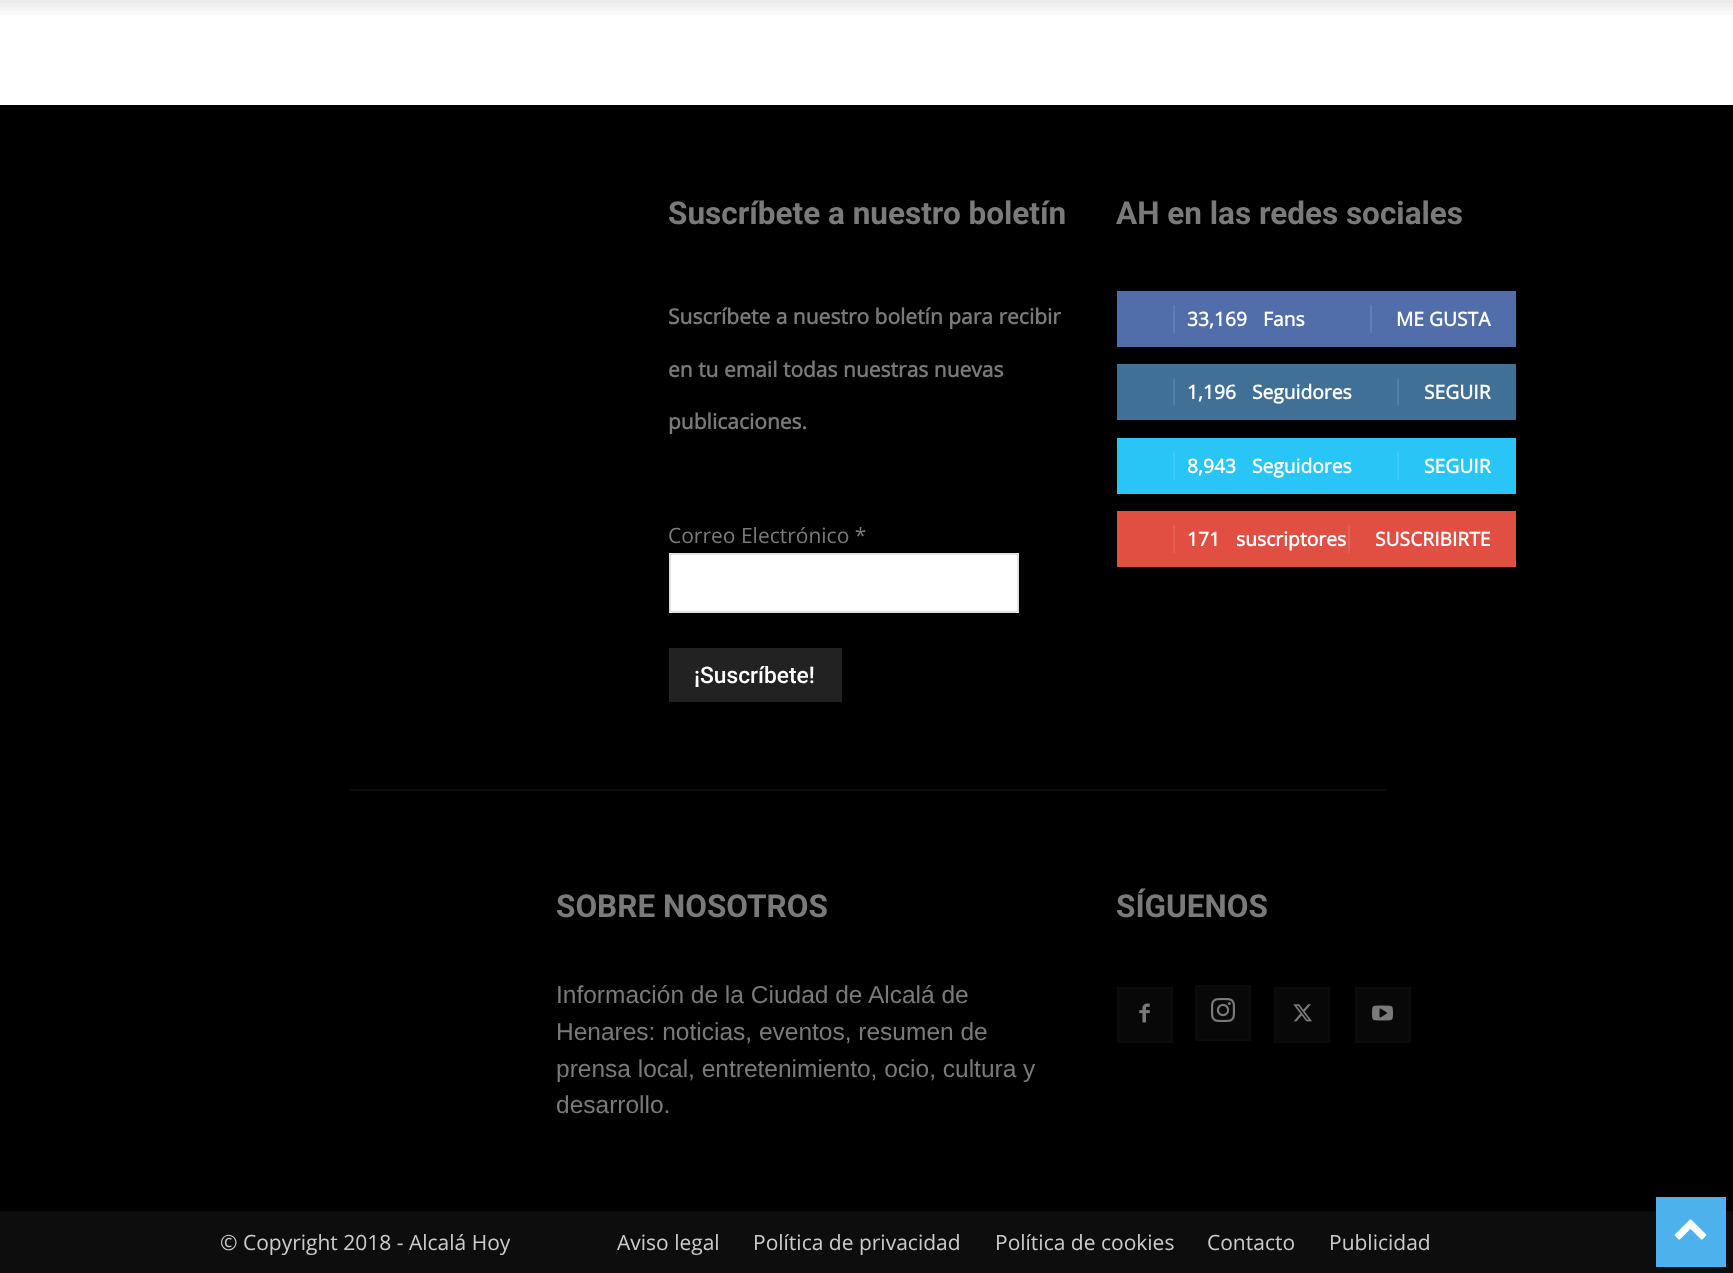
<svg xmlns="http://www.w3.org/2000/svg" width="1733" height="1273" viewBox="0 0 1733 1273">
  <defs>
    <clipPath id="clip1"><path d="M669 184h399v518H669z"/></clipPath>
  </defs>
  <rect width="100%" height="100%" fill="#fff"/>
  <image x="0" y="0" width="1733" height="15" href="img/1.png"/>
  <path d="M0 105h1733v1106H0z" fill="#000"/>
  <path d="M670 554h348v58H670z" fill="#fff" stroke="#e1e1e1" stroke-width="2"/>
  <path d="M669 648h173v54H669z" fill="#222"/>
  <path d="M1117 291h399v56H1117z" fill="#516eab"/>
  <path d="M1173 305h2v28H1173z" fill="#627db3"/>
  <path d="M1370 305h2v28H1370z" fill="#627db3"/>
  <path d="M1117 364h399v56H1117z" fill="#417096"/>
  <path d="M1173 378h2v28H1173z" fill="#547ea1"/>
  <path d="M1397 378h2v28H1397z" fill="#547ea1"/>
  <path d="M1117 438h399v56H1117z" fill="#29c5f6"/>
  <path d="M1173 452h2v28H1173z" fill="#3ecbf7"/>
  <path d="M1397 452h2v28H1397z" fill="#3ecbf7"/>
  <path d="M1117 511h399v56H1117z" fill="#e14e42"/>
  <path d="M1173 525h2v28H1173z" fill="#e46055"/>
  <path d="M1348 525h2v28H1348z" fill="#e46055"/>
  <path d="M350 789h1036v2H350z" fill="#0c0c0c"/>
  <path d="M1119 989h52v52H1119z" fill="#080808"/>
  <image x="1139" y="1003" width="11" height="20" href="img/2.png"/>
  <path d="M1118 988h54v54H1118z" fill="none" stroke="#0b0b0b" stroke-width="2"/>
  <path d="M1197 987h52v52H1197z" fill="#080808"/>
  <image x="1211" y="998" width="24" height="24" href="img/3.png"/>
  <path d="M1196 986h54v54H1196z" fill="none" stroke="#0b0b0b" stroke-width="2"/>
  <path d="M1276 989h52v52H1276z" fill="#080808"/>
  <image x="1293" y="1004" width="19" height="18" href="img/4.png"/>
  <path d="M1275 988h54v54H1275z" fill="none" stroke="#0b0b0b" stroke-width="2"/>
  <path d="M1357 989h52v52H1357z" fill="#080808"/>
  <image x="1372" y="1005" width="21" height="16" href="img/5.png"/>
  <path d="M1356 988h54v54H1356z" fill="none" stroke="#0b0b0b" stroke-width="2"/>
  <path d="M0 1211h1733v62H0z" fill="#0d0d0d"/>
  <path d="M1656 1197h70v70H1656z" fill="#4db2ec"/>
  <image x="1674" y="1219" width="33" height="21" href="img/6.png"/>
  <text x="668" y="224" font-family="Roboto" font-size="31.5" font-weight="bold" fill="#7a7a7a">Suscríbete a nuestro boletín</text>
  <g clip-path="url(#clip1)">
    <g font-family="Open Sans" font-size="21" font-weight="bold" fill="#7a7a7a">
      <text x="668" y="324">Suscríbete a nuestro boletín para recibir</text>
      <text x="668" y="377">en tu email todas nuestras nuevas</text>
    </g>
  </g>
  <text x="668" y="429" font-family="Open Sans" font-size="21" font-weight="bold" fill="#7a7a7a">publicaciones.</text>
  <text x="668" y="543" font-family="Open Sans" font-size="21" fill="#7a7a7a">Correo Electrónico *</text>
  <text x="694" y="683" font-family="Roboto" font-size="22.75" font-weight="500" fill="#fff">¡Suscríbete!</text>
  <text x="1116" y="224" font-family="Roboto" font-size="31.5" font-weight="bold" fill="#7a7a7a">AH en las redes sociales</text>
  <g font-family="Open Sans" font-size="19.25" font-weight="bold" fill="#fff">
    <text x="1187" y="326">33,169</text>
    <text x="1263" y="326">Fans</text>
    <text x="1396" y="326">ME GUSTA</text>
    <text x="1187" y="399">1,196</text>
    <text x="1252" y="399">Seguidores</text>
    <text x="1424" y="399">SEGUIR</text>
    <text x="1187" y="473">8,943</text>
    <text x="1252" y="473">Seguidores</text>
    <text x="1424" y="473">SEGUIR</text>
    <text x="1187" y="546">171</text>
    <text x="1236" y="546">suscriptores</text>
    <text x="1375" y="546">SUSCRIBIRTE</text>
  </g>
  <text x="556" y="917" font-family="Roboto" font-size="31.5" font-weight="bold" fill="#7a7a7a">SOBRE NOSOTROS</text>
  <g font-family="Liberation Sans" font-size="24.5" fill="#7a7a7a">
    <text x="556" y="1003">Información de la Ciudad de Alcalá de</text>
    <text x="556" y="1040">Henares: noticias, eventos, resumen de</text>
    <text x="556" y="1077">prensa local, entretenimiento, ocio, cultura y</text>
    <text x="556" y="1113">desarrollo.</text>
  </g>
  <text x="1116" y="917" font-family="Roboto" font-size="31.5" font-weight="bold" fill="#7a7a7a">SÍGUENOS</text>
  <g font-family="Open Sans" font-size="21" fill="#ccc">
    <text x="220" y="1250">© Copyright 2018 - Alcalá Hoy</text>
    <text x="617" y="1250">Aviso legal</text>
    <text x="753" y="1250">Política de privacidad</text>
    <text x="995" y="1250">Política de cookies</text>
    <text x="1207" y="1250">Contacto</text>
    <text x="1329" y="1250">Publicidad</text>
  </g>
</svg>
